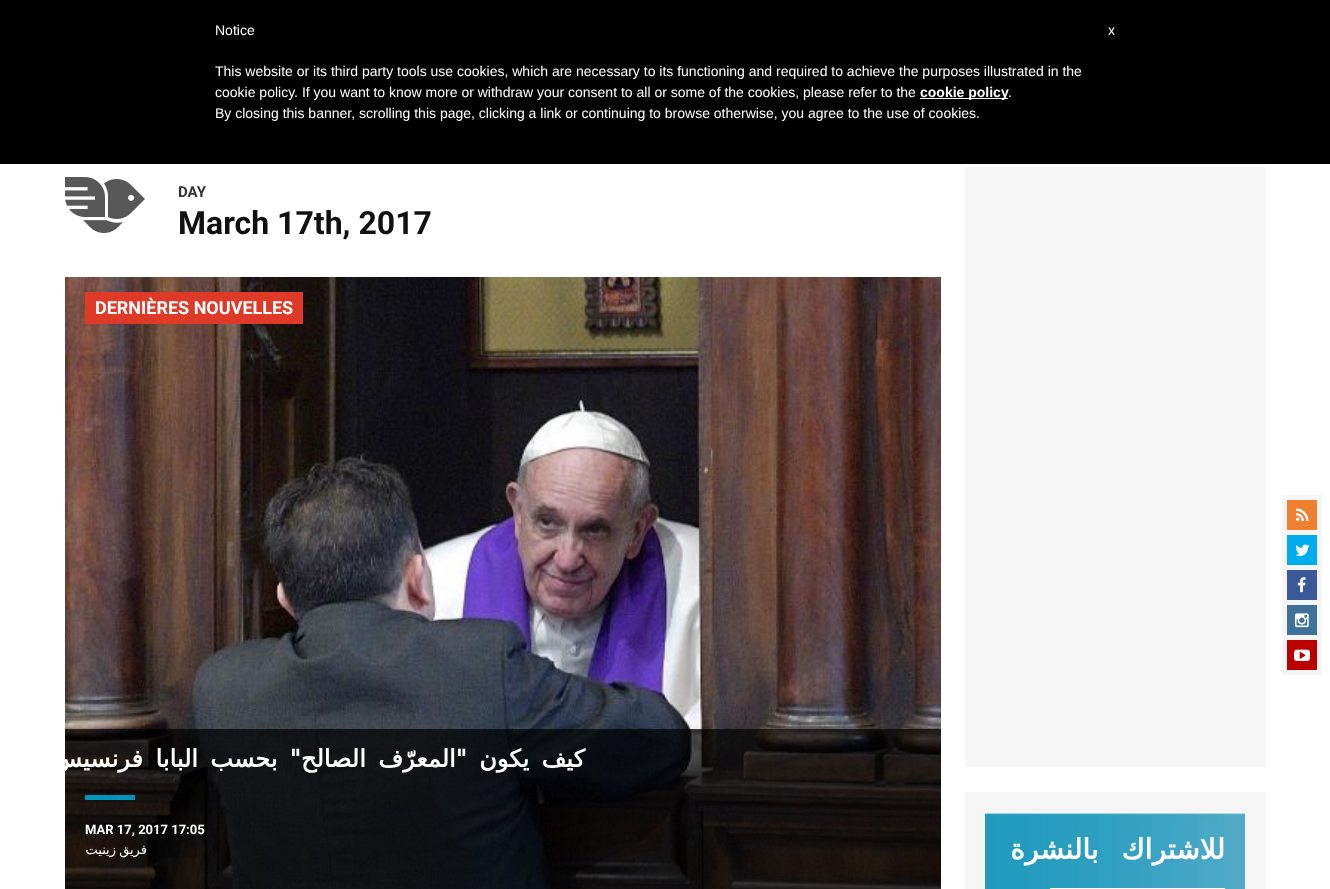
<svg xmlns="http://www.w3.org/2000/svg" width="1330" height="889" viewBox="0 0 1330 889">
  <rect width="100%" height="100%" fill="#fff"/>
  <path d="M0 0h1330v164H0z" fill="#000"/>
  <path d="M920 98h88v1H920z" fill="#fff"/>
  <image x="65" y="177" width="80" height="56" href="img/1.png"/>
  <image x="65" y="277" width="876" height="612" href="img/2.png"/>
  <path d="M85 292h218v32H85z" fill="#df3a28"/>
  <path d="M65 729h876v160H65z" fill="#000000b3"/>
  <path d="M85 795h50v5H85z" fill="#0296be"/>
  <path d="M965 167h300v600H965z" fill="#f5f5f5"/>
  <path d="M965 792h300v97H965z" fill="#f5f5f5"/>
  <image x="985" y="812" width="260" height="77" href="img/3.png"/>
  <path d="M1050 888h175v1H1050z" fill="#fff"/>
  <path d="M1282 495h40v180H1282z" fill="#f5f5f5"/>
  <path d="M1287 500h30v30H1287z" fill="#ee802f"/>
  <image x="1296" y="508" width="13" height="13" href="img/4.png"/>
  <path d="M1287 535h30v30H1287z" fill="#00aced"/>
  <image x="1295" y="544" width="15" height="12" href="img/5.png"/>
  <path d="M1287 570h30v30H1287z" fill="#3b5998"/>
  <image x="1297" y="577" width="9" height="16" href="img/6.png"/>
  <path d="M1287 605h30v30H1287z" fill="#3f729b"/>
  <image x="1295" y="613" width="14" height="15" href="img/7.png"/>
  <path d="M1287 640h30v30H1287z" fill="#b00"/>
  <image x="1294" y="649" width="16" height="12" href="img/8.png"/>
  <g font-family="Liberation Sans" font-size="14" fill="#fff">
    <text x="215" y="35">Notice</text>
    <text x="215" y="76">This website or its third party tools use cookies, which are necessary to its functioning and required to achieve the purposes illustrated in the</text>
    <text x="215" y="97">cookie policy. If you want to know more or withdraw your consent to all or some of the cookies, please refer to the</text>
  </g>
  <text x="920" y="97" font-family="Liberation Sans" font-size="14" font-weight="bold" fill="#fff">cookie policy</text>
  <g font-family="Liberation Sans" font-size="14" fill="#fff">
    <text x="1008" y="97">.</text>
    <text x="215" y="118">By closing this banner, scrolling this page, clicking a link or continuing to browse otherwise, you agree to the use of cookies.</text>
    <text x="1108" y="35">x</text>
  </g>
  <text x="178" y="197" font-family="Roboto" font-size="15" font-weight="bold" fill="#333">DAY</text>
  <text x="178" y="234" font-family="Roboto" font-size="32" font-weight="bold" fill="#111">March 17th, 2017</text>
  <text x="95" y="314" font-family="Roboto" font-size="18" font-weight="bold" fill="#fff">DERNIÈRES NOUVELLES</text>
  <text x="585" y="767" word-spacing="4.75" font-family="DejaVu Sans" font-size="24" font-weight="bold" letter-spacing="-1" direction="rtl" fill="#fff">كيف يكون "المعرّف الصالح" بحسب البابا فرنسيس؟</text>
  <text x="85" y="834" font-family="Roboto" font-size="13" font-weight="bold" fill="#fff">MAR 17, 2017 17:05</text>
  <text x="147" y="854" word-spacing="-1" font-family="DejaVu Sans" font-size="13" direction="rtl" fill="#fff">فريق زينيت</text>
  <text x="1225" y="859" word-spacing="14" font-family="DejaVu Sans" font-size="28" font-weight="bold" letter-spacing="-1" direction="rtl" fill="#fff">للاشتراك بالنشرة</text>
</svg>
